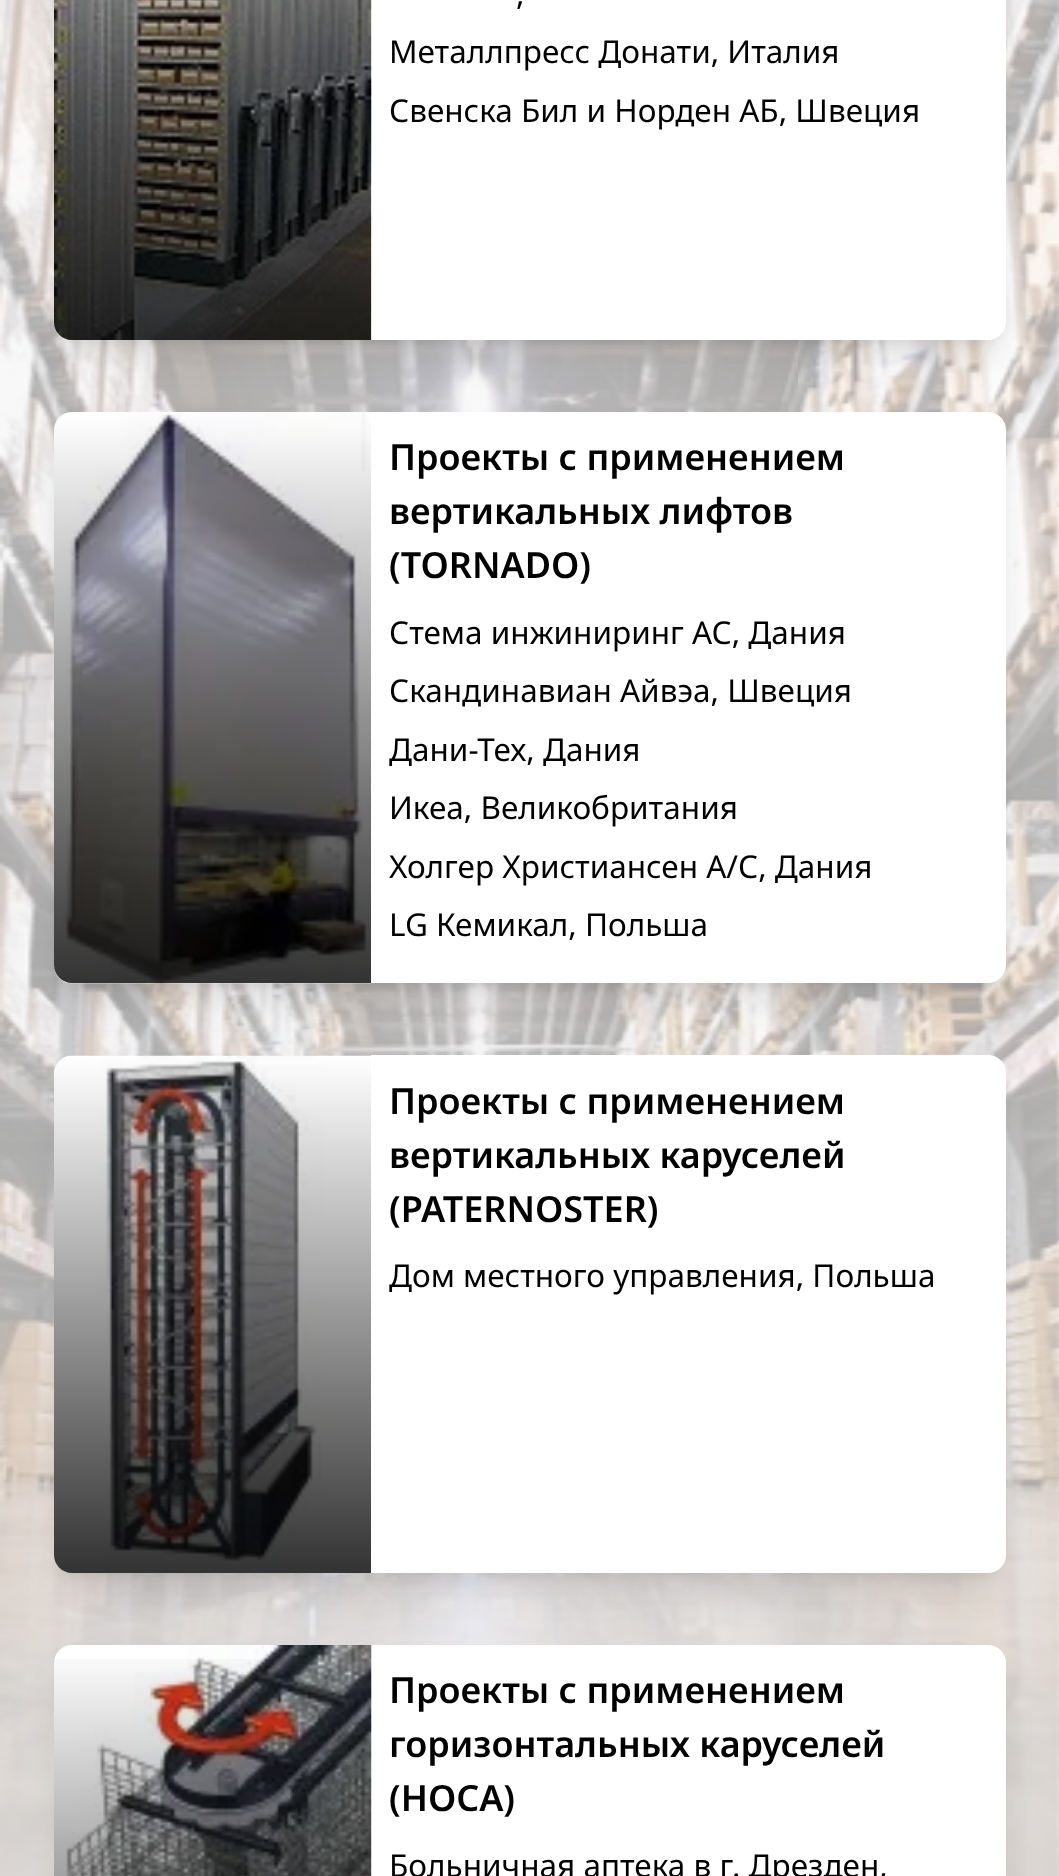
<svg xmlns="http://www.w3.org/2000/svg" width="1059" height="1876" viewBox="0 0 1059 1876">
  <defs>
    <linearGradient id="g1" gradientUnits="userSpaceOnUse" x1="213" y1="340" x2="213" y2="-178"><stop offset="0" stop-color="#000" stop-opacity="0.8"/><stop offset="0.5" stop-color="#000" stop-opacity="0.4"/><stop offset="1" stop-color="#000" stop-opacity="0"/></linearGradient>
    <linearGradient id="g2" gradientUnits="userSpaceOnUse" x1="213" y1="983" x2="213" y2="412"><stop offset="0" stop-color="#000" stop-opacity="0.8"/><stop offset="0.5" stop-color="#000" stop-opacity="0.4"/><stop offset="1" stop-color="#000" stop-opacity="0"/></linearGradient>
    <linearGradient id="g3" gradientUnits="userSpaceOnUse" x1="213" y1="1573" x2="213" y2="1055"><stop offset="0" stop-color="#000" stop-opacity="0.8"/><stop offset="0.5" stop-color="#000" stop-opacity="0.4"/><stop offset="1" stop-color="#000" stop-opacity="0"/></linearGradient>
    <linearGradient id="g4" gradientUnits="userSpaceOnUse" x1="213" y1="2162" x2="213" y2="1645"><stop offset="0" stop-color="#000" stop-opacity="0.8"/><stop offset="0.5" stop-color="#000" stop-opacity="0.4"/><stop offset="1" stop-color="#000" stop-opacity="0"/></linearGradient>
  </defs>
  <rect width="100%" height="100%" fill="#fff"/>
  <image x="0" y="0" width="1059" height="1876" href="img/1.png"/>
  <rect x="63" y="-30" width="934" height="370" rx="9" fill="#0000001a" filter="blur(7px)"/>
  <rect x="61" y="-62" width="938" height="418" rx="11" fill="#0000001a" filter="blur(17px)"/>
  <path d="M371-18H988C998-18 1006-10 1006 0V322C1006 332 998 340 988 340H371Z" fill="#fff"/>
  <image x="54" y="0" width="318" height="340" href="img/2.png"/>
  <path d="M72-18H371V340H72C62 340 54 332 54 322V0C54-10 62-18 72-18Z" fill="url(#g1)"/>
  <rect x="63" y="430" width="934" height="553" rx="9" fill="#0000001a" filter="blur(7px)"/>
  <rect x="61" y="441" width="938" height="558" rx="11" fill="#0000001a" filter="blur(17px)"/>
  <path d="M371 412H988C998 412 1006 420 1006 430V965C1006 975 998 983 988 983H371Z" fill="#fff"/>
  <image x="54" y="412" width="318" height="572" href="img/3.png"/>
  <path d="M72 412H371V983H72C62 983 54 975 54 965V430C54 420 62 412 72 412Z" fill="url(#g2)"/>
  <rect x="63" y="1073" width="934" height="500" rx="9" fill="#0000001a" filter="blur(7px)"/>
  <rect x="61" y="1085" width="938" height="504" rx="11" fill="#0000001a" filter="blur(17px)"/>
  <image x="54" y="1055" width="317" height="518" href="img/4.png"/>
  <path d="M72 1055H371V1573H72C62 1573 54 1565 54 1555V1073C54 1063 62 1055 72 1055Z" fill="url(#g3)"/>
  <path d="M371 1055H988C998 1055 1006 1063 1006 1073V1555C1006 1565 998 1573 988 1573H371Z" fill="#fff"/>
  <rect x="61" y="1674" width="938" height="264" rx="11" fill="#0000001a" filter="blur(17px)"/>
  <path d="M371 1645H988C998 1645 1006 1653 1006 1663V1876C1006 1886 998 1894 988 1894H371Z" fill="#fff"/>
  <image x="54" y="1645" width="318" height="231" href="img/5.png"/>
  <path d="M54 1659h317v217H54z" fill="url(#g4)"/>
  <g font-family="Noto Sans" font-size="31.5" fill="#000">
    <text x="516" y="5">,</text>
    <text x="389" y="63">Металлпресс Донати, Италия</text>
    <text x="389" y="122">Свенска Бил и Норден АБ, Швеция</text>
  </g>
  <g font-family="Noto Sans" font-size="36" font-weight="600" fill="#000">
    <text x="389" y="470">Проекты с применением</text>
    <text x="389" y="524">вертикальных лифтов</text>
    <text x="389" y="578">(TORNADO)</text>
  </g>
  <g font-family="Noto Sans" font-size="31.5" fill="#000">
    <text x="389" y="644">Стема инжиниринг АС, Дания</text>
    <text x="389" y="702">Скандинавиан Айвэа, Швеция</text>
    <text x="389" y="761">Дани-Тех, Дания</text>
    <text x="389" y="819">Икеа, Великобритания</text>
    <text x="389" y="878">Холгер Христиансен А/С, Дания</text>
    <text x="389" y="936">LG Кемикал, Польша</text>
  </g>
  <g font-family="Noto Sans" font-size="36" font-weight="600" fill="#000">
    <text x="389" y="1114">Проекты с применением</text>
    <text x="389" y="1168">вертикальных каруселей</text>
    <text x="389" y="1222">(PATERNOSTER)</text>
  </g>
  <text x="389" y="1287" font-family="Noto Sans" font-size="31.5" fill="#000">Дом местного управления, Польша</text>
  <g font-family="Noto Sans" font-size="36" font-weight="600" fill="#000">
    <text x="389" y="1703">Проекты с применением</text>
    <text x="389" y="1757">горизонтальных каруселей</text>
    <text x="389" y="1811">(HOCA)</text>
  </g>
  <text x="389" y="1877" font-family="Noto Sans" font-size="31.5" fill="#000">Больничная аптека в г. Дрезден,</text>
</svg>
